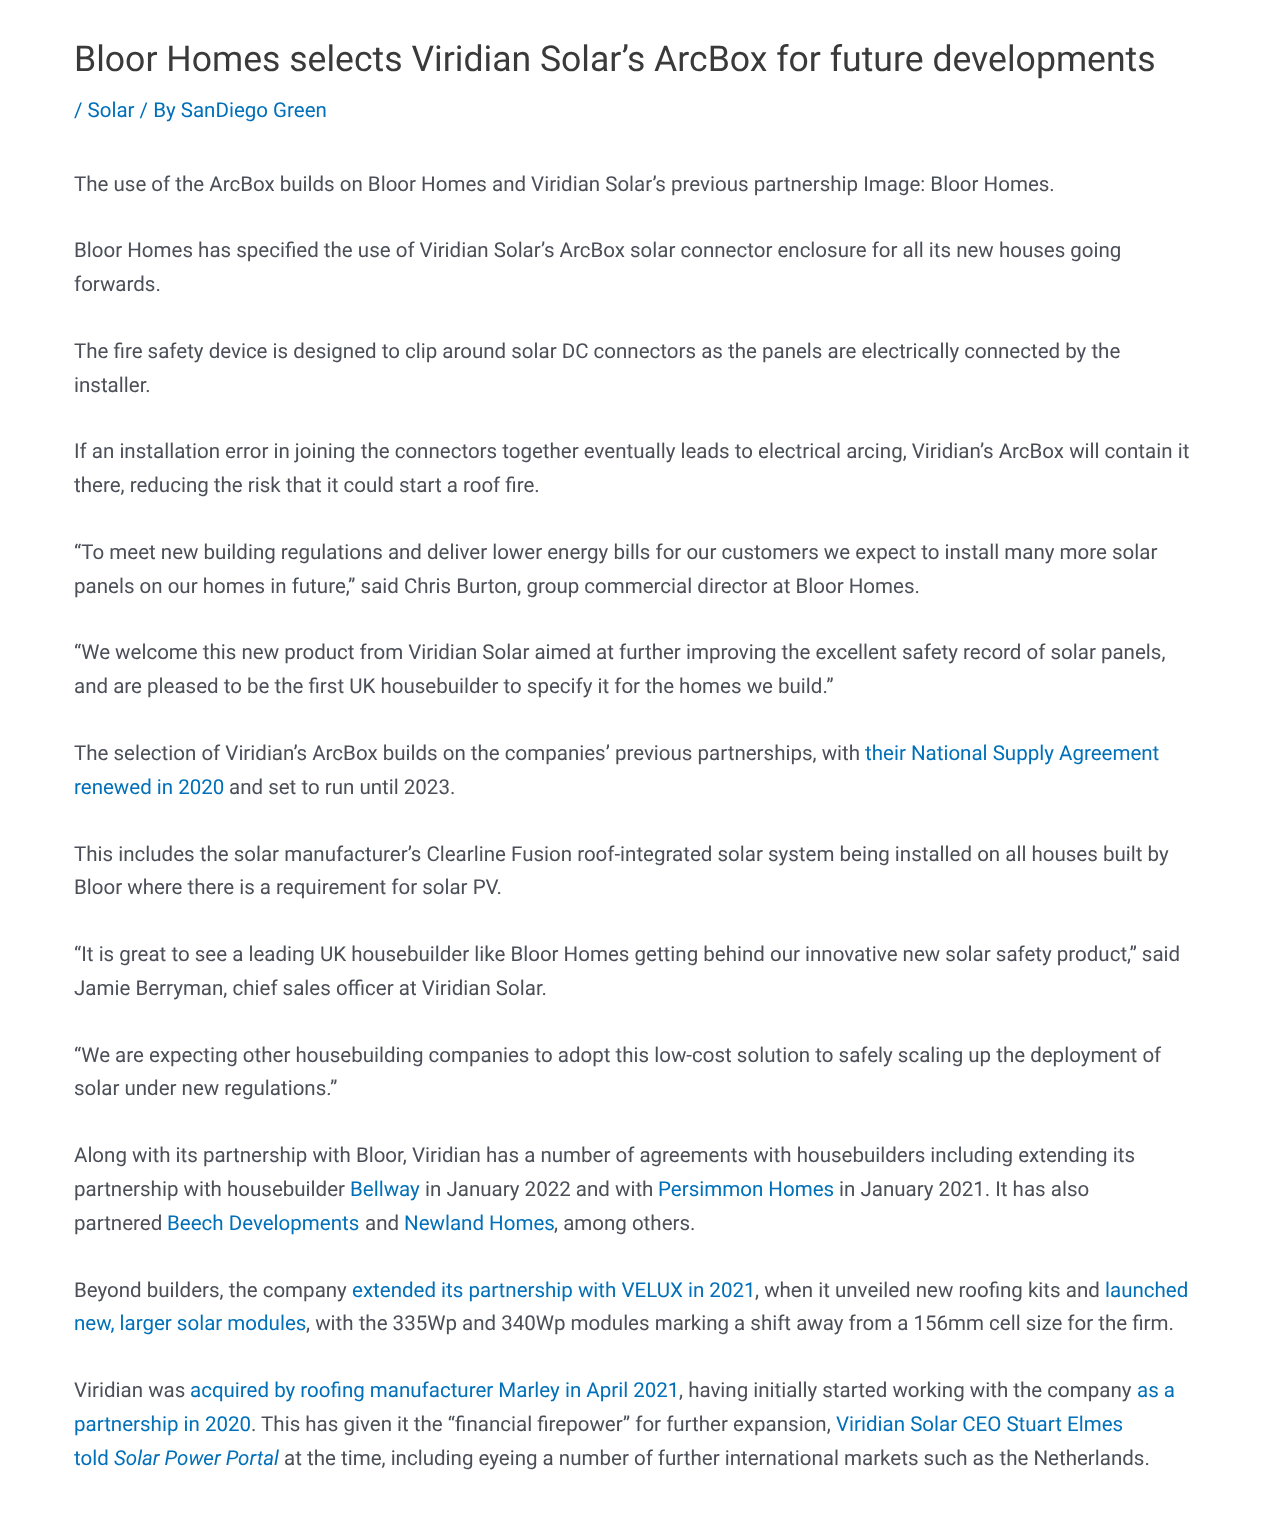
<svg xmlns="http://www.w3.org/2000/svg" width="1269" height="1522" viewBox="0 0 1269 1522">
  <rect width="100%" height="100%" fill="#fff"/>
  <text x="74" y="71" font-family="Roboto" font-size="35.6" fill="#3a3a3a">Bloor Homes selects Viridian Solar’s ArcBox for future developments</text>
  <text x="74" y="117" font-family="Roboto" font-size="20.52" fill="#0170b9">/ Solar / By SanDiego Green</text>
  <g font-family="Roboto" font-size="20.52" fill="#4b4f58">
    <text x="74" y="191">The use of the ArcBox builds on Bloor Homes and Viridian Solar’s previous partnership Image: Bloor Homes.</text>
    <text x="74" y="257">Bloor Homes has specified the use of Viridian Solar’s ArcBox solar connector enclosure for all its new houses going</text>
    <text x="74" y="291">forwards.</text>
    <text x="74" y="358">The fire safety device is designed to clip around solar DC connectors as the panels are electrically connected by the</text>
    <text x="74" y="392">installer.</text>
    <text x="74" y="458">If an installation error in joining the connectors together eventually leads to electrical arcing, Viridian’s ArcBox will contain it</text>
    <text x="74" y="492">there, reducing the risk that it could start a roof fire.</text>
    <text x="74" y="559">“To meet new building regulations and deliver lower energy bills for our customers we expect to install many more solar</text>
    <text x="74" y="593">panels on our homes in future,” said Chris Burton, group commercial director at Bloor Homes.</text>
    <text x="74" y="659">“We welcome this new product from Viridian Solar aimed at further improving the excellent safety record of solar panels,</text>
    <text x="74" y="693">and are pleased to be the first UK housebuilder to specify it for the homes we build.”</text>
    <text x="74" y="760">The selection of Viridian’s ArcBox builds on the companies’ previous partnerships, with</text>
  </g>
  <g font-family="Roboto" font-size="20.52" fill="#0170b9">
    <text x="865" y="760">their National Supply Agreement</text>
    <text x="74" y="794">renewed in 2020</text>
  </g>
  <g font-family="Roboto" font-size="20.52" fill="#4b4f58">
    <text x="229" y="794">and set to run until 2023.</text>
    <text x="74" y="861">This includes the solar manufacturer’s Clearline Fusion roof-integrated solar system being installed on all houses built by</text>
    <text x="74" y="894">Bloor where there is a requirement for solar PV.</text>
    <text x="74" y="961">“It is great to see a leading UK housebuilder like Bloor Homes getting behind our innovative new solar safety product,” said</text>
    <text x="74" y="995">Jamie Berryman, chief sales officer at Viridian Solar.</text>
    <text x="74" y="1062">“We are expecting other housebuilding companies to adopt this low-cost solution to safely scaling up the deployment of</text>
    <text x="74" y="1095">solar under new regulations.”</text>
    <text x="74" y="1162">Along with its partnership with Bloor, Viridian has a number of agreements with housebuilders including extending its</text>
    <text x="74" y="1196">partnership with housebuilder</text>
  </g>
  <text x="350" y="1196" font-family="Roboto" font-size="20.52" fill="#0170b9">Bellway</text>
  <text x="425" y="1196" font-family="Roboto" font-size="20.52" fill="#4b4f58">in January 2022 and with</text>
  <text x="658" y="1196" font-family="Roboto" font-size="20.52" fill="#0170b9">Persimmon Homes</text>
  <g font-family="Roboto" font-size="20.52" fill="#4b4f58">
    <text x="839" y="1196">in January 2021. It has also</text>
    <text x="74" y="1230">partnered</text>
  </g>
  <text x="167" y="1230" font-family="Roboto" font-size="20.52" fill="#0170b9">Beech Developments</text>
  <text x="365" y="1230" font-family="Roboto" font-size="20.52" fill="#4b4f58">and</text>
  <text x="404" y="1230" font-family="Roboto" font-size="20.52" fill="#0170b9">Newland Homes</text>
  <g font-family="Roboto" font-size="20.52" fill="#4b4f58">
    <text x="554" y="1230">, among others.</text>
    <text x="74" y="1297">Beyond builders, the company</text>
  </g>
  <text x="352" y="1297" font-family="Roboto" font-size="20.52" fill="#0170b9">extended its partnership with VELUX in 2021</text>
  <text x="755" y="1297" font-family="Roboto" font-size="20.52" fill="#4b4f58">, when it unveiled new roofing kits and</text>
  <g font-family="Roboto" font-size="20.52" fill="#0170b9">
    <text x="1105" y="1297">launched</text>
    <text x="74" y="1330">new, larger solar modules</text>
  </g>
  <g font-family="Roboto" font-size="20.52" fill="#4b4f58">
    <text x="306" y="1330">, with the 335Wp and 340Wp modules marking a shift away from a 156mm cell size for the firm.</text>
    <text x="74" y="1397">Viridian was</text>
  </g>
  <text x="190" y="1397" font-family="Roboto" font-size="20.52" fill="#0170b9">acquired by roofing manufacturer Marley in April 2021</text>
  <text x="679" y="1397" font-family="Roboto" font-size="20.52" fill="#4b4f58">, having initially started working with the company</text>
  <g font-family="Roboto" font-size="20.52" fill="#0170b9">
    <text x="1137" y="1397">as a</text>
    <text x="74" y="1431">partnership in 2020</text>
  </g>
  <text x="251" y="1431" font-family="Roboto" font-size="20.52" fill="#4b4f58">. This has given it the “financial firepower” for further expansion,</text>
  <g font-family="Roboto" font-size="20.52" fill="#0170b9">
    <text x="836" y="1431">Viridian Solar CEO Stuart Elmes</text>
    <text x="74" y="1465">told</text>
  </g>
  <text x="114" y="1465" font-family="Roboto" font-size="20.52" font-style="italic" fill="#0170b9">Solar Power Portal</text>
  <text x="284" y="1465" font-family="Roboto" font-size="20.52" fill="#4b4f58">at the time, including eyeing a number of further international markets such as the Netherlands.</text>
</svg>
